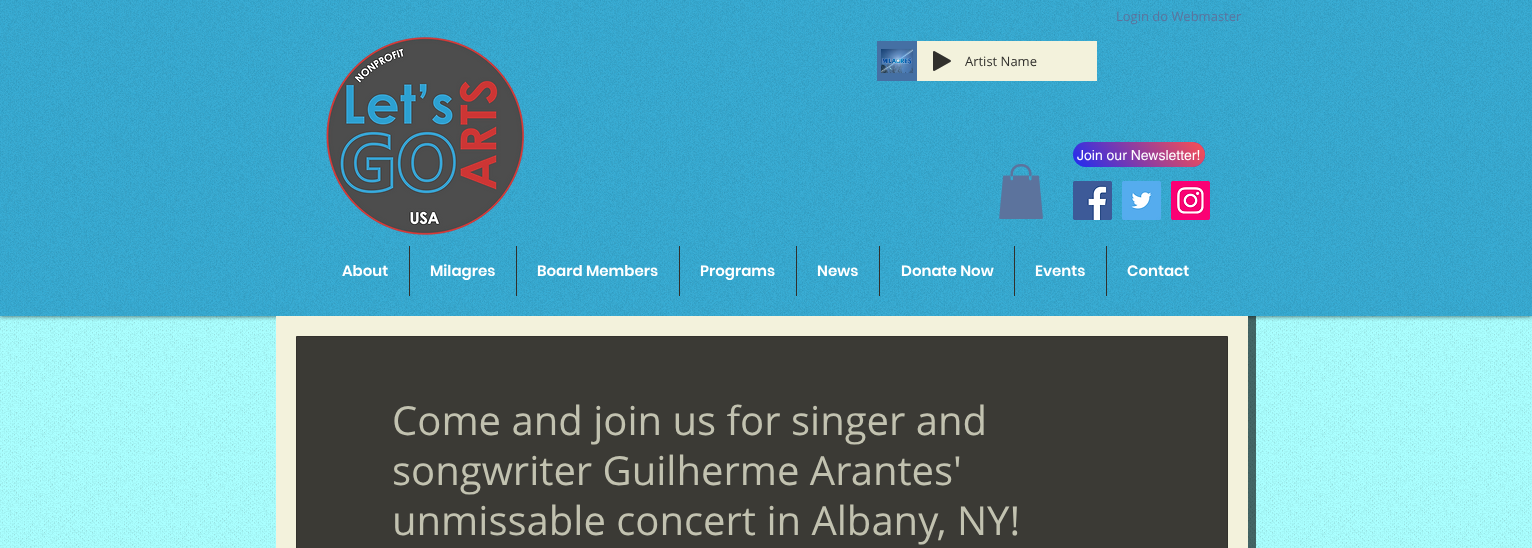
<svg xmlns="http://www.w3.org/2000/svg" width="1532" height="548" viewBox="0 0 1532 548">
  <defs>
    <clipPath id="clip1"><path d="M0 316h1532v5H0z"/></clipPath>
    <linearGradient id="g1" gradientUnits="userSpaceOnUse" x1="1183" y1="116" x2="1095" y2="193"><stop offset="0" stop-color="#ff4f4f"/><stop offset="1" stop-color="#ff4f4f" stop-opacity="0"/></linearGradient>
  </defs>
  <rect width="100%" height="100%" fill="#aff"/>
  <image x="0" y="0" width="1532" height="548" href="img/1.png"/>
  <g clip-path="url(#clip1)">
    <path d="M0 0h1532v316H0z" fill="#000000b3" filter="blur(2.5px)"/>
  </g>
  <path d="M0 0h1532v316H0z" fill="#0084c1ab"/>
  <image x="0" y="0" width="1532" height="316" href="img/2.png"/>
  <image x="326" y="37" width="199" height="198" href="img/3.png"/>
  <path d="M917 41h180v40H917z" fill="#f3f2dc"/>
  <image x="877" y="41" width="40" height="40" href="img/4.png"/>
  <image x="933" y="51" width="18" height="20" href="img/5.png"/>
  <rect x="1073" y="142" width="132" height="25" rx="12.5" fill="#1d2cf3"/>
  <rect x="1073" y="142" width="132" height="25" rx="12.5" fill="url(#g1)"/>
  <image x="999" y="164" width="44" height="55" href="img/6.png"/>
  <image x="1073" y="181" width="39" height="39" href="img/7.png"/>
  <image x="1122" y="181" width="39" height="39" href="img/8.png"/>
  <image x="1171" y="181" width="39" height="39" href="img/9.png"/>
  <path d="M409 246h1v50H409z" fill="#31302c"/>
  <path d="M516 246h1v50H516z" fill="#31302c"/>
  <path d="M679 246h1v50H679z" fill="#31302c"/>
  <path d="M796 246h1v50H796z" fill="#31302c"/>
  <path d="M879 246h1v50H879z" fill="#31302c"/>
  <path d="M1014 246h1v50H1014z" fill="#31302c"/>
  <path d="M1106 246h1v50H1106z" fill="#31302c"/>
  <path d="M276 316h972v232H276z" fill="#f3f2dc"/>
  <path d="M296.5 336.5h931v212H296.5z" fill="#3b3a35" stroke="#32312c"/>
  <path d="M1248 316h8v232H1248z" fill="#00000099"/>
  <text x="1116" y="21" font-family="Open Sans" font-size="13" fill="#5c739d">Login do Webmaster</text>
  <text x="965" y="66" font-family="Open Sans" font-size="13" fill="#31302c">Artist Name</text>
  <text x="1077" y="160" font-family="helvetica" font-size="14" fill="#fff">Join our Newsletter!</text>
  <g font-family="Poppins" font-size="15" font-weight="600" fill="#fff">
    <text x="342" y="276">About</text>
    <text x="430" y="276">Milagres</text>
    <text x="537" y="276">Board Members</text>
    <text x="700" y="276">Programs</text>
    <text x="817" y="276">News</text>
    <text x="901" y="276">Donate Now</text>
    <text x="1035" y="276">Events</text>
    <text x="1127" y="276">Contact</text>
  </g>
  <g font-family="Open Sans" font-size="40" fill="#c2c2b0">
    <text x="392" y="435">Come and join us for singer and</text>
    <text x="392" y="485">songwriter Guilherme Arantes'</text>
    <text x="392" y="535">unmissable concert in Albany, NY!</text>
  </g>
</svg>
